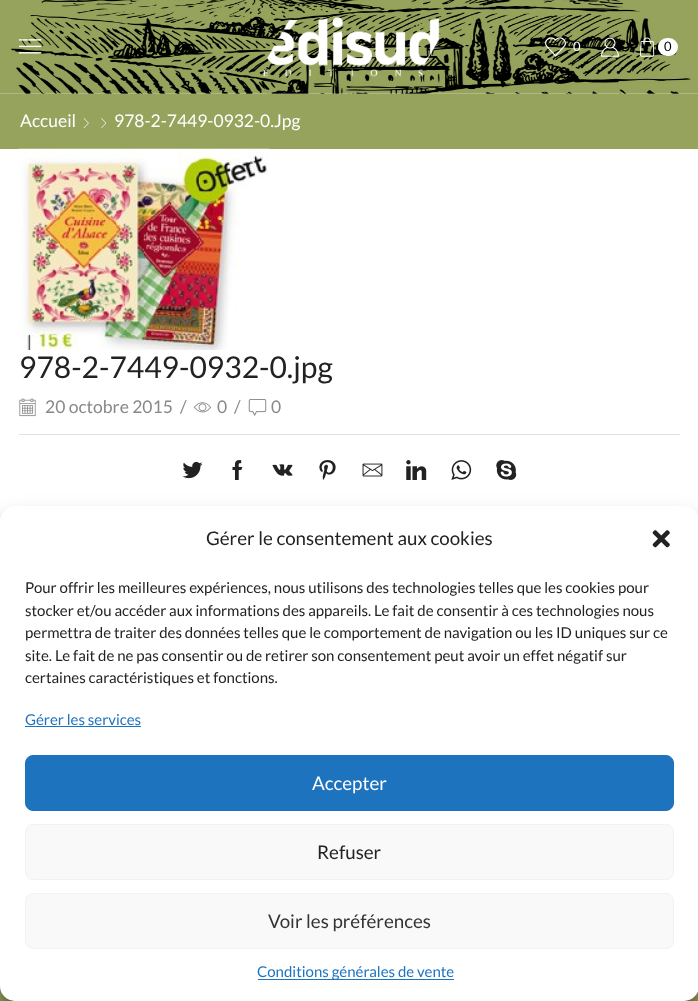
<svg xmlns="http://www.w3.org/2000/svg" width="698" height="1001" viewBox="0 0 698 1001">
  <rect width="100%" height="100%" fill="#fff"/>
  <image x="0" y="0" width="698" height="94" href="img/1.png"/>
  <image x="18" y="39" width="24" height="15" href="img/2.png"/>
  <image x="263" y="17" width="177" height="60" href="img/3.png"/>
  <image x="545" y="37" width="21" height="20" href="img/4.png"/>
  <image x="601" y="37" width="18" height="20" href="img/5.png"/>
  <image x="640" y="37" width="15" height="20" href="img/6.png"/>
  <rect x="658" y="38" width="20" height="18" rx="9" fill="#fff"/>
  <path d="M0 94h698v55H0z" fill="#96a35d"/>
  <image x="83" y="118" width="6" height="10" href="img/7.png"/>
  <image x="101" y="118" width="6" height="11" href="img/8.png"/>
  <image x="18" y="148" width="251" height="202" href="img/9.png"/>
  <image x="19" y="398" width="17" height="19" href="img/10.png"/>
  <image x="193" y="402" width="19" height="11" href="img/11.png"/>
  <image x="248" y="399" width="19" height="17" href="img/12.png"/>
  <path d="M19 434h661v1H19z" fill="#e1e1e1"/>
  <image x="182" y="461" width="21" height="18" href="img/13.png"/>
  <image x="232" y="460" width="11" height="20" href="img/14.png"/>
  <image x="272" y="464" width="21" height="12" href="img/15.png"/>
  <image x="319" y="460" width="17" height="20" href="img/16.png"/>
  <image x="362" y="463" width="21" height="14" href="img/17.png"/>
  <image x="406" y="460" width="21" height="20" href="img/18.png"/>
  <image x="451" y="460" width="21" height="20" href="img/19.png"/>
  <image x="496" y="460" width="21" height="20" href="img/20.png"/>
  <path d="M0 986h698v15H0z" fill="#96a35d"/>
  <rect y="514" width="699" height="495" rx="15" fill="#0000003b" filter="blur(4px)"/>
  <rect y="519" width="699" height="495" rx="15" fill="#00000030" filter="blur(12.5px)"/>
  <rect y="506" width="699" height="495" rx="15" fill="#fff"/>
  <image x="652" y="530" width="18" height="18" href="img/21.png"/>
  <path d="M25 726h116v1H25z" fill="#1e73be"/>
  <rect x="25.5" y="755.5" width="648" height="55" rx="7.5" fill="#1e73be" stroke="#1e73be"/>
  <rect x="25.5" y="824.5" width="648" height="55" rx="7.5" fill="#f9f9f9" stroke="#f2f2f2"/>
  <rect x="25.5" y="893.5" width="648" height="55" rx="7.5" fill="#f9f9f9" stroke="#f2f2f2"/>
  <path d="M258 979h196v1H258z" fill="#1e73be"/>
  <text x="573" y="51" font-family="Lato" font-size="13" fill="#fff">0</text>
  <text x="664" y="51" font-family="Lato" font-size="13" fill="#000">0</text>
  <g font-family="Lato" font-size="17.5" fill="#fff">
    <text x="20" y="127">Accueil</text>
    <text x="114" y="127">978-2-7449-0932-0.Jpg</text>
  </g>
  <text x="19" y="378" font-family="Lato" font-size="30" fill="#222">978-2-7449-0932-0.jpg</text>
  <g font-family="Lato" font-size="17.5" fill="#888">
    <text x="45" y="413">20 octobre 2015</text>
    <text x="180" y="413">/</text>
    <text x="217" y="413">0</text>
    <text x="234" y="413">/</text>
    <text x="271" y="413">0</text>
  </g>
  <text x="206" y="545" font-family="Lato" font-size="18.75" fill="#222">Gérer le consentement aux cookies</text>
  <g font-family="Lato" font-size="15" fill="#222">
    <text x="25" y="593">Pour offrir les meilleures expériences, nous utilisons des technologies telles que les cookies pour</text>
    <text x="25" y="616">stocker et/ou accéder aux informations des appareils. Le fait de consentir à ces technologies nous</text>
    <text x="25" y="638">permettra de traiter des données telles que le comportement de navigation ou les ID uniques sur ce</text>
    <text x="25" y="661">site. Le fait de ne pas consentir ou de retirer son consentement peut avoir un effet négatif sur</text>
    <text x="25" y="683">certaines caractéristiques et fonctions.</text>
  </g>
  <text x="25" y="725" font-family="Lato" font-size="15" fill="#1e73be">Gérer les services</text>
  <text x="312" y="790" font-family="Lato" font-size="18.75" fill="#fff">Accepter</text>
  <text x="317" y="859" font-family="Lato" font-size="18.75" fill="#222">Refuser</text>
  <text x="268" y="928" font-family="Lato" font-size="18.75" fill="#333">Voir les préférences</text>
  <text x="257" y="977" font-family="Lato" font-size="15" fill="#1e73be">Conditions générales de vente</text>
</svg>
